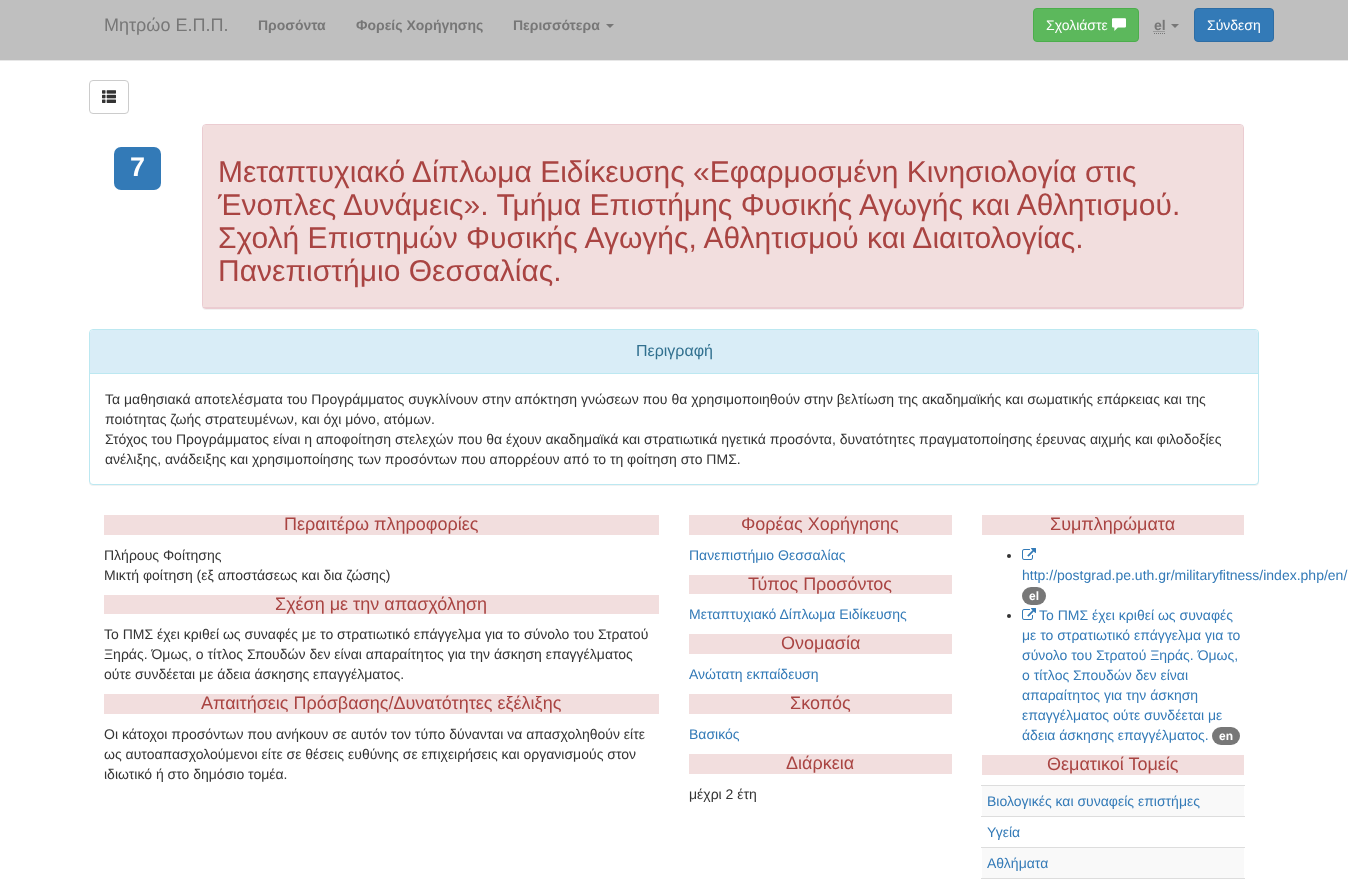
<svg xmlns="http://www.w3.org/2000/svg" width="1348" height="891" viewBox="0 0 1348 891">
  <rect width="100%" height="100%" fill="#fff"/>
  <path d="M0 0h1348v60H0z" fill="#bfbfbf"/>
  <path d="M0 60h1348v1H0z" fill="#e7e7e7"/>
  <path d="M606 24H614L610 28Z" fill="#777"/>
  <rect x="1033.5" y="8.5" width="105" height="33" rx="3.5" fill="#5cb85c" stroke="#4cae4c"/>
  <image x="1112" y="18" width="14" height="13" href="img/1.png"/>
  <path d="M1154 33.5H1165M1153.5 31.5H1165.5" fill="none" stroke="#777" stroke-dasharray="1 1"/>
  <path d="M1171 24H1179L1175 28Z" fill="#777"/>
  <rect x="1194.5" y="8.5" width="79" height="33" rx="3.5" fill="#337ab7" stroke="#2e6da4"/>
  <rect x="89.5" y="80.5" width="39" height="33" rx="3.5" fill="none" stroke="#ccc"/>
  <image x="102" y="90" width="14" height="13" href="img/2.png"/>
  <rect x="114" y="147" width="47" height="43" rx="7" fill="#337ab7"/>
  <rect x="202" y="125" width="1042" height="185" rx="4" fill="#0000000d" filter="blur(0.5px)"/>
  <rect x="202.5" y="124.5" width="1041" height="184" rx="3.5" fill="none" stroke="#ebccd1"/>
  <path d="M206 125H1240C1241.5 125 1243 126.5 1243 128V308H203V128C203 126.5 204.5 125 206 125Z" fill="#f2dede"/>
  <path d="M203 307h1040v1H203z" fill="#ebccd1"/>
  <rect x="89" y="330" width="1170" height="156" rx="4" fill="#0000000d" filter="blur(0.5px)"/>
  <rect x="89.5" y="329.5" width="1169" height="155" rx="3.5" fill="#fff" stroke="#bce8f1"/>
  <path d="M93 330H1255C1256.5 330 1258 331.5 1258 333V374H90V333C90 331.5 91.5 330 93 330Z" fill="#d9edf7"/>
  <path d="M90 373h1168v1H90z" fill="#bce8f1"/>
  <path d="M104 515h555v20H104z" fill="#f2dede"/>
  <path d="M104 595h555v19H104z" fill="#f2dede"/>
  <path d="M104 694h555v20H104z" fill="#f2dede"/>
  <path d="M689 515h263v20H689z" fill="#f2dede"/>
  <path d="M689 575h263v19H689z" fill="#f2dede"/>
  <path d="M689 634h263v20H689z" fill="#f2dede"/>
  <path d="M689 694h263v20H689z" fill="#f2dede"/>
  <path d="M689 754h263v20H689z" fill="#f2dede"/>
  <path d="M982 515h262v20H982z" fill="#f2dede"/>
  <circle cx="1009" cy="556" r="2" fill="#333"/>
  <image x="1022" y="548" width="14" height="12" href="img/3.png"/>
  <rect x="1022" y="587" width="24" height="18" rx="9" fill="#777"/>
  <circle cx="1009" cy="616" r="2" fill="#333"/>
  <image x="1022" y="608" width="14" height="12" href="img/3.png"/>
  <rect x="1212" y="727" width="28" height="18" rx="9" fill="#777"/>
  <path d="M982 755h262v20H982z" fill="#f2dede"/>
  <path d="M982 786h262v30H982z" fill="#f9f9f9"/>
  <path d="M981 785h264v1H981z" fill="#ddd"/>
  <path d="M981 816h264v1H981z" fill="#ddd"/>
  <path d="M982 848h262v30H982z" fill="#f9f9f9"/>
  <path d="M981 847h264v1H981z" fill="#ddd"/>
  <path d="M981 878h264v1H981z" fill="#ddd"/>
  <text x="104" y="31" font-family="Liberation Sans" font-size="18" fill="#777">Μητρώο Ε.Π.Π.</text>
  <g font-family="Liberation Sans" font-size="14" font-weight="bold" fill="#777">
    <text x="258" y="30">Προσόντα</text>
    <text x="356" y="30">Φορείς Χορήγησης</text>
    <text x="513" y="30">Περισσότερα</text>
  </g>
  <text x="1046" y="30" font-family="Liberation Sans" font-size="14" fill="#fff">Σχολιάστε</text>
  <text x="1154" y="30" font-family="Liberation Sans" font-size="14" font-weight="bold" fill="#777">el</text>
  <text x="1207" y="30" font-family="Liberation Sans" font-size="14" fill="#fff">Σύνδεση</text>
  <text x="130" y="176" font-family="Liberation Sans" font-size="27" font-weight="bold" fill="#fff">7</text>
  <g font-family="Liberation Sans" font-size="30" fill="#a94442">
    <text x="218" y="182">Μεταπτυχιακό Δίπλωμα Ειδίκευσης «Εφαρμοσμένη Κινησιολογία στις</text>
    <text x="218" y="215">Ένοπλες Δυνάμεις». Τμήμα Επιστήμης Φυσικής Αγωγής και Αθλητισμού.</text>
    <text x="218" y="248">Σχολή Επιστημών Φυσικής Αγωγής, Αθλητισμού και Διαιτολογίας.</text>
    <text x="218" y="281">Πανεπιστήμιο Θεσσαλίας.</text>
  </g>
  <text x="636" y="356" font-family="Liberation Sans" font-size="16" fill="#31708f">Περιγραφή</text>
  <g font-family="Liberation Sans" font-size="14" fill="#333">
    <text x="105" y="404">Τα μαθησιακά αποτελέσματα του Προγράμματος συγκλίνουν στην απόκτηση γνώσεων που θα χρησιμοποιηθούν στην βελτίωση της ακαδημαϊκής και σωματικής επάρκειας και της</text>
    <text x="105" y="424">ποιότητας ζωής στρατευμένων, και όχι μόνο, ατόμων.</text>
    <text x="105" y="444">Στόχος του Προγράμματος είναι η αποφοίτηση στελεχών που θα έχουν ακαδημαϊκά και στρατιωτικά ηγετικά προσόντα, δυνατότητες πραγματοποίησης έρευνας αιχμής και φιλοδοξίες</text>
    <text x="105" y="464">ανέλιξης, ανάδειξης και χρησιμοποίησης των προσόντων που απορρέουν από το τη φοίτηση στο ΠΜΣ.</text>
  </g>
  <text x="284" y="530" font-family="Liberation Sans" font-size="18" fill="#a94442">Περαιτέρω πληροφορίες</text>
  <g font-family="Liberation Sans" font-size="14" fill="#333">
    <text x="104" y="560">Πλήρους Φοίτησης</text>
    <text x="104" y="580">Μικτή φοίτηση (εξ αποστάσεως και δια ζώσης)</text>
  </g>
  <text x="275" y="610" font-family="Liberation Sans" font-size="18" fill="#a94442">Σχέση με την απασχόληση</text>
  <g font-family="Liberation Sans" font-size="14" fill="#333">
    <text x="104" y="639">Το ΠΜΣ έχει κριθεί ως συναφές με το στρατιωτικό επάγγελμα για το σύνολο του Στρατού</text>
    <text x="104" y="659">Ξηράς. Όμως, ο τίτλος Σπουδών δεν είναι απαραίτητος για την άσκηση επαγγέλματος</text>
    <text x="104" y="679">ούτε συνδέεται με άδεια άσκησης επαγγέλματος.</text>
  </g>
  <text x="201" y="709" font-family="Liberation Sans" font-size="18" fill="#a94442">Απαιτήσεις Πρόσβασης/Δυνατότητες εξέλιξης</text>
  <g font-family="Liberation Sans" font-size="14" fill="#333">
    <text x="104" y="739">Οι κάτοχοι προσόντων που ανήκουν σε αυτόν τον τύπο δύνανται να απασχοληθούν είτε</text>
    <text x="104" y="759">ως αυτοαπασχολούμενοι είτε σε θέσεις ευθύνης σε επιχειρήσεις και οργανισμούς στον</text>
    <text x="104" y="779">ιδιωτικό ή στο δημόσιο τομέα.</text>
  </g>
  <text x="741" y="530" font-family="Liberation Sans" font-size="18" fill="#a94442">Φορέας Χορήγησης</text>
  <text x="689" y="560" font-family="Liberation Sans" font-size="14" fill="#337ab7">Πανεπιστήμιο Θεσσαλίας</text>
  <text x="748" y="590" font-family="Liberation Sans" font-size="18" fill="#a94442">Τύπος Προσόντος</text>
  <text x="689" y="619" font-family="Liberation Sans" font-size="14" fill="#337ab7">Μεταπτυχιακό Δίπλωμα Ειδίκευσης</text>
  <text x="781" y="649" font-family="Liberation Sans" font-size="18" fill="#a94442">Ονομασία</text>
  <text x="689" y="679" font-family="Liberation Sans" font-size="14" fill="#337ab7">Ανώτατη εκπαίδευση</text>
  <text x="790" y="709" font-family="Liberation Sans" font-size="18" fill="#a94442">Σκοπός</text>
  <text x="689" y="739" font-family="Liberation Sans" font-size="14" fill="#337ab7">Βασικός</text>
  <text x="786" y="769" font-family="Liberation Sans" font-size="18" fill="#a94442">Διάρκεια</text>
  <text x="689" y="799" font-family="Liberation Sans" font-size="14" fill="#333">μέχρι 2 έτη</text>
  <text x="1050" y="530" font-family="Liberation Sans" font-size="18" fill="#a94442">Συμπληρώματα</text>
  <text x="1022" y="580" font-family="Liberation Sans" font-size="14" fill="#337ab7">http://postgrad.pe.uth.gr/militaryfitness/index.php/en/</text>
  <text x="1029" y="600" font-family="Liberation Sans" font-size="12" font-weight="bold" fill="#fff">el</text>
  <g font-family="Liberation Sans" font-size="14" fill="#337ab7">
    <text x="1039" y="620">Το ΠΜΣ έχει κριθεί ως συναφές</text>
    <text x="1022" y="640">με το στρατιωτικό επάγγελμα για το</text>
    <text x="1022" y="660">σύνολο του Στρατού Ξηράς. Όμως,</text>
    <text x="1022" y="680">ο τίτλος Σπουδών δεν είναι</text>
    <text x="1022" y="700">απαραίτητος για την άσκηση</text>
    <text x="1022" y="720">επαγγέλματος ούτε συνδέεται με</text>
    <text x="1022" y="740">άδεια άσκησης επαγγέλματος.</text>
  </g>
  <text x="1219" y="740" font-family="Liberation Sans" font-size="12" font-weight="bold" fill="#fff">en</text>
  <text x="1047" y="770" font-family="Liberation Sans" font-size="18" fill="#a94442">Θεματικοί Τομείς</text>
  <g font-family="Liberation Sans" font-size="14" fill="#337ab7">
    <text x="987" y="806">Βιολογικές και συναφείς επιστήμες</text>
    <text x="987" y="837">Υγεία</text>
    <text x="987" y="868">Αθλήματα</text>
  </g>
</svg>
